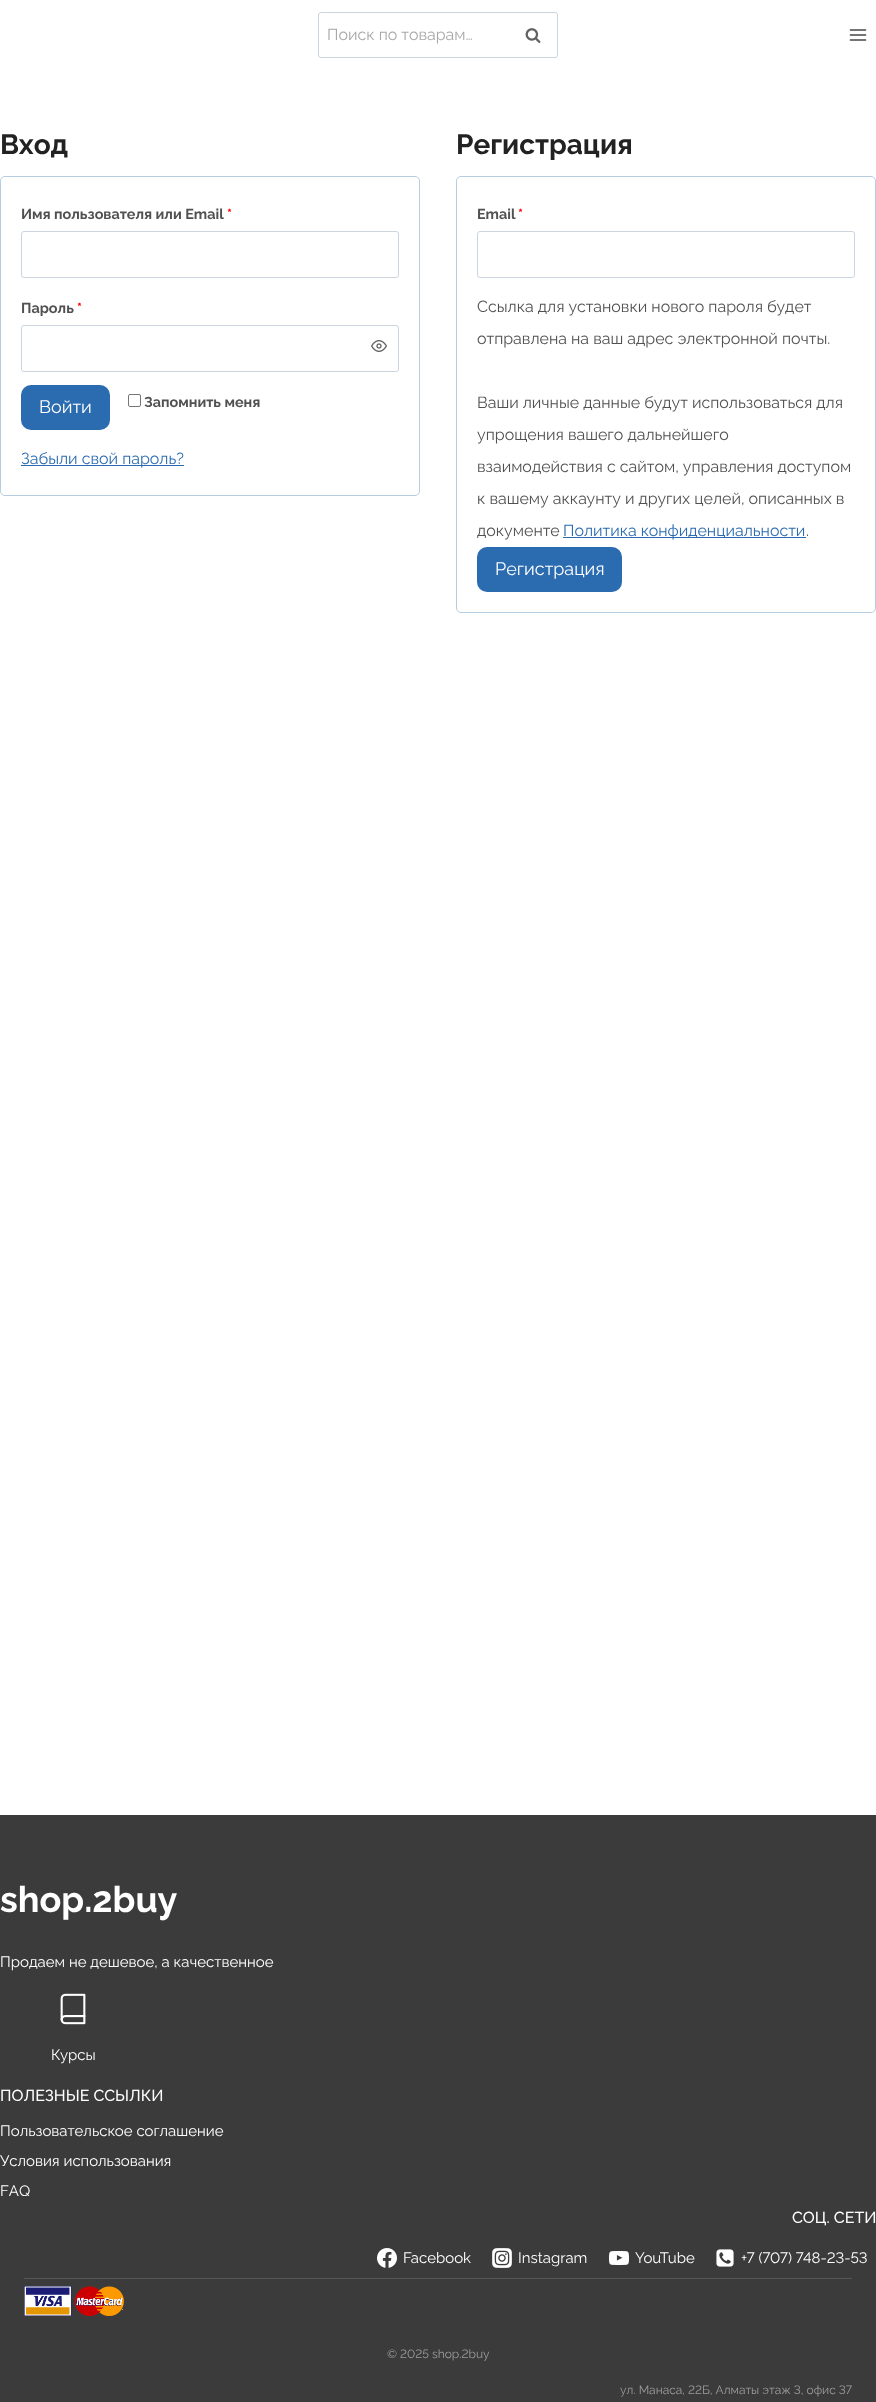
<svg xmlns="http://www.w3.org/2000/svg" width="876" height="2402" viewBox="0 0 876 2402">
  <rect width="100%" height="100%" fill="#fff"/>
  <rect x="318.5" y="12.5" width="239" height="45" rx="2.5" fill="none" stroke="#cbd5e0"/>
  <image x="525" y="28" width="16" height="15" href="img/1.png"/>
  <image x="849" y="29" width="18" height="12" href="img/2.png"/>
  <rect x="0.5" y="176.5" width="419" height="319" rx="4.5" fill="none" stroke="#b7cde1"/>
  <rect x="21.5" y="231.5" width="377" height="46" rx="2.5" fill="none" stroke="#cbd5e0"/>
  <rect x="21.5" y="325.5" width="377" height="46" rx="2.5" fill="none" stroke="#cbd5e0"/>
  <image x="371" y="340" width="16" height="12" href="img/3.png"/>
  <rect x="21" y="385" width="89" height="45" rx="10" fill="#2b6cb0"/>
  <rect x="128.5" y="394.5" width="12" height="12" rx="1.5" fill="none" stroke="#767676"/>
  <path d="M21 465h163v1H21z" fill="#2b6cb0"/>
  <rect x="456.5" y="176.5" width="419" height="436" rx="4.5" fill="none" stroke="#b7cde1"/>
  <rect x="477.5" y="231.5" width="377" height="46" rx="2.5" fill="none" stroke="#cbd5e0"/>
  <path d="M563 537h243v1H563z" fill="#2b6cb0"/>
  <rect x="477" y="547" width="145" height="45" rx="10" fill="#2b6cb0"/>
  <path d="M0 1815h876v587H0z" fill="#3b3b3b"/>
  <image x="60" y="1993" width="26" height="32" href="img/4.png"/>
  <image x="377" y="2248" width="20" height="20" href="img/5.png"/>
  <image x="492" y="2248" width="20" height="20" href="img/6.png"/>
  <image x="609" y="2251" width="20" height="14" href="img/7.png"/>
  <image x="716" y="2249" width="18" height="18" href="img/8.png"/>
  <path d="M24 2278h828v1H24z" fill="#565657"/>
  <image x="24" y="2286" width="100" height="30" href="img/9.png"/>
  <text x="327" y="40" font-family="Raleway" font-size="16" fill="#a8a8a8">Поиск по товарам…</text>
  <text x="0" y="154" font-family="Raleway" font-size="28" font-weight="bold" fill="#222">Вход</text>
  <text x="21" y="219" font-family="Raleway" font-size="14.4" font-weight="bold" fill="#515151">Имя пользователя или Email</text>
  <text x="227" y="219" font-family="Raleway" font-size="14.4" font-weight="bold" fill="#f00">*</text>
  <text x="21" y="313" font-family="Raleway" font-size="14.4" font-weight="bold" fill="#515151">Пароль</text>
  <text x="77" y="313" font-family="Raleway" font-size="14.4" font-weight="bold" fill="#f00">*</text>
  <text x="39" y="413" font-family="Raleway" font-size="18" fill="#fff">Войти</text>
  <text x="144" y="407" font-family="Raleway" font-size="14.4" font-weight="bold" fill="#515151">Запомнить меня</text>
  <text x="21" y="464" font-family="Raleway" font-size="16" fill="#2b6cb0">Забыли свой пароль?</text>
  <text x="456" y="154" font-family="Raleway" font-size="28" font-weight="bold" fill="#222">Регистрация</text>
  <text x="477" y="219" font-family="Raleway" font-size="14.4" font-weight="bold" fill="#515151">Email</text>
  <text x="518" y="219" font-family="Raleway" font-size="14.4" font-weight="bold" fill="#f00">*</text>
  <g font-family="Raleway" font-size="16" fill="#515151">
    <text x="477" y="312">Ссылка для установки нового пароля будет</text>
    <text x="477" y="344">отправлена на ваш адрес электронной почты.</text>
    <text x="477" y="408">Ваши личные данные будут использоваться для</text>
    <text x="477" y="440">упрощения вашего дальнейшего</text>
    <text x="477" y="472">взаимодействия с сайтом, управления доступом</text>
    <text x="477" y="504">к вашему аккаунту и других целей, описанных в</text>
    <text x="477" y="536">документе</text>
  </g>
  <text x="563" y="536" font-family="Raleway" font-size="16" fill="#2b6cb0">Политика конфиденциальности</text>
  <text x="806" y="536" font-family="Raleway" font-size="16" fill="#515151">.</text>
  <text x="495" y="575" font-family="Raleway" font-size="18" fill="#fff">Регистрация</text>
  <text x="0" y="1912" font-family="Raleway" font-size="36" font-weight="bold" fill="#fff">shop.2buy</text>
  <g font-family="Raleway" font-size="15" fill="#fff">
    <text x="0" y="1967">Продаем не дешевое, а качественное</text>
    <text x="51" y="2060">Курсы</text>
  </g>
  <text x="0" y="2101" font-family="Raleway" font-size="16" font-weight="500" fill="#fff">ПОЛЕЗНЫЕ ССЫЛКИ</text>
  <g font-family="Raleway" font-size="15" fill="#fff">
    <text x="0" y="2136">Пользовательское соглашение</text>
    <text x="0" y="2166">Условия использования</text>
    <text x="0" y="2196">FAQ</text>
  </g>
  <text x="792" y="2223" font-family="Raleway" font-size="16" font-weight="500" fill="#fff">СОЦ. СЕТИ</text>
  <g font-family="Raleway" font-size="15" fill="#fff">
    <text x="403" y="2263">Facebook</text>
    <text x="518" y="2263">Instagram</text>
    <text x="635" y="2263">YouTube</text>
  </g>
  <text x="741" y="2263" font-family="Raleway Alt" font-size="15" fill="#fff">+7 (707) 748-23-53</text>
  <g font-family="Raleway Alt" font-size="12" fill="#9d9d9d">
    <text x="387" y="2358">© 2025 shop.2buy</text>
    <text x="620" y="2394">ул. Манаса, 22Б, Алматы этаж 3, офис 37</text>
  </g>
</svg>
